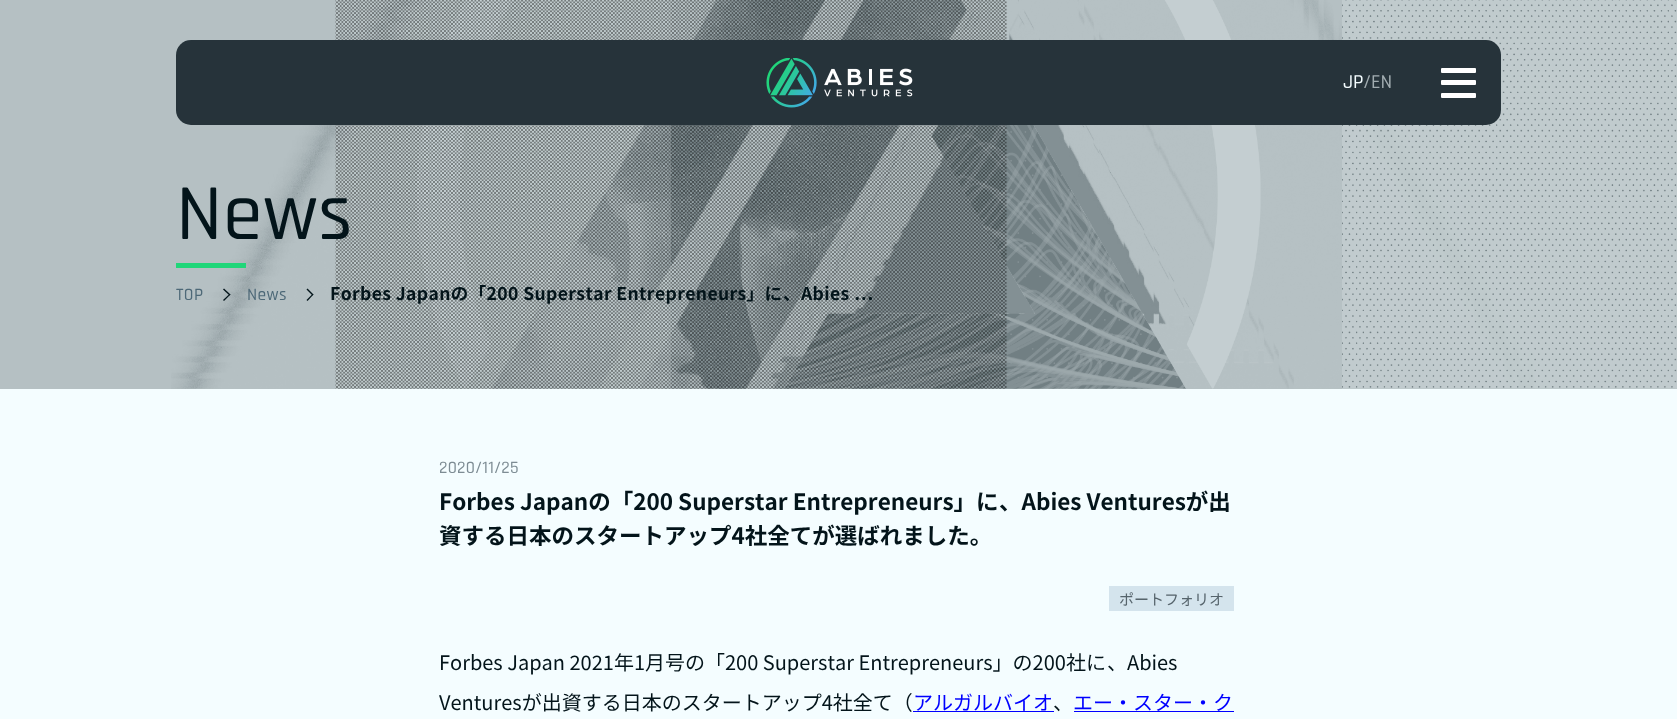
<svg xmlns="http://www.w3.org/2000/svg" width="1677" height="719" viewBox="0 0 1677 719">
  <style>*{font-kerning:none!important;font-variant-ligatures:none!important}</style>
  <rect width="100%" height="100%" fill="#b5c0c3"/>
  <image x="171" y="0" width="1506" height="389" href="img/2.png"/>
  <rect x="176" y="40" width="1325" height="85" rx="15" fill="#26333a"/>
  <image x="766" y="58" width="147" height="50" href="img/1.png"/>
  <rect x="1441" y="68" width="35" height="5" rx="1" fill="#fff"/>
  <rect x="1441" y="80" width="35" height="5" rx="1" fill="#fff"/>
  <rect x="1441" y="93" width="35" height="5" rx="1" fill="#fff"/>
  <path d="M176 263h70v5H176z" fill="#20d679"/>
  <path d="M224 288.5L230.5 294.5L229.5 295.5L223 289.5Z" fill="#03141a"/>
  <path d="M229.5 294L230.5 294.5L224 301L223 300Z" fill="#03141a"/>
  <path d="M307.5 288.5L313.5 294.5L312.5 295.5L306.5 289.5Z" fill="#03141a"/>
  <path d="M312.5 294L313.5 294.5L307.5 301L306.5 300Z" fill="#03141a"/>
  <path d="M0 389h1677v330H0z" fill="#f4fdff"/>
  <path d="M1109 586h125v25H1109z" fill="#d4e4ed"/>
  <path d="M913 711h141v1H913z" fill="#00f"/>
  <path d="M1074 711h160v1H1074z" fill="#00f"/>
  <text x="1343" y="88" font-family="Rajdhani" font-size="20" font-weight="500" fill="#f4fdff">JP</text>
  <text x="1363" y="88" font-family="Rajdhani" font-size="20" font-weight="500" fill="#a1acb0">/EN</text>
  <text x="176" y="239" font-family="Rajdhani" font-size="80" font-weight="500" letter-spacing="0.4" fill="#03141a">News</text>
  <g font-family="Rajdhani" font-size="17.5" font-weight="500" letter-spacing="0.4" fill="#4e6978">
    <text x="176" y="300">TOP</text>
    <text x="247" y="300">News</text>
  </g>
  <text x="330" y="300" font-family="Noto Sans JP" font-size="17.5" font-weight="bold" letter-spacing="0.4" fill="#03141a">Forbes Japanの「200 Superstar Entrepreneurs」に</text>
  <text x="783" y="300" font-family="Noto Sans JP" font-size="17.5" font-weight="bold" letter-spacing="0.4" fill="#03141a">、Abies …</text>
  <text x="439" y="473" font-family="Rajdhani" font-size="17.5" font-weight="500" letter-spacing="0.25" fill="#7d8c94">2020/11/25</text>
  <g font-family="Noto Sans JP" font-size="22.5" font-weight="bold" fill="#03141a">
    <text x="439" y="510">Forbes Japanの「200 Superstar Entrepreneurs」に</text>
    <text x="999" y="510">、Abies Venturesが出</text>
    <text x="439" y="544">資する日本のスタートアップ4社全てが選ばれました。</text>
  </g>
  <text x="1119" y="605" font-family="Noto Sans JP" font-size="15" fill="#56646c">ポートフォリオ</text>
  <g font-family="Noto Sans JP" font-size="20" fill="#03141a">
    <text x="439" y="670">Forbes Japan 2021年1月号の「200 Superstar Entrepreneurs」の200社に</text>
    <text x="1107" y="670">、Abies</text>
    <text x="439" y="710">Venturesが出資する日本のスタートアップ4社全て（</text>
  </g>
  <text x="913" y="710" font-family="Noto Sans JP" font-size="20" fill="#00f">アルガルバイオ</text>
  <text x="1053" y="710" font-family="Noto Sans JP" font-size="20" fill="#03141a">、</text>
  <text x="1073" y="710" font-family="Noto Sans JP" font-size="20" fill="#00f">エー・スター・ク</text>
</svg>
